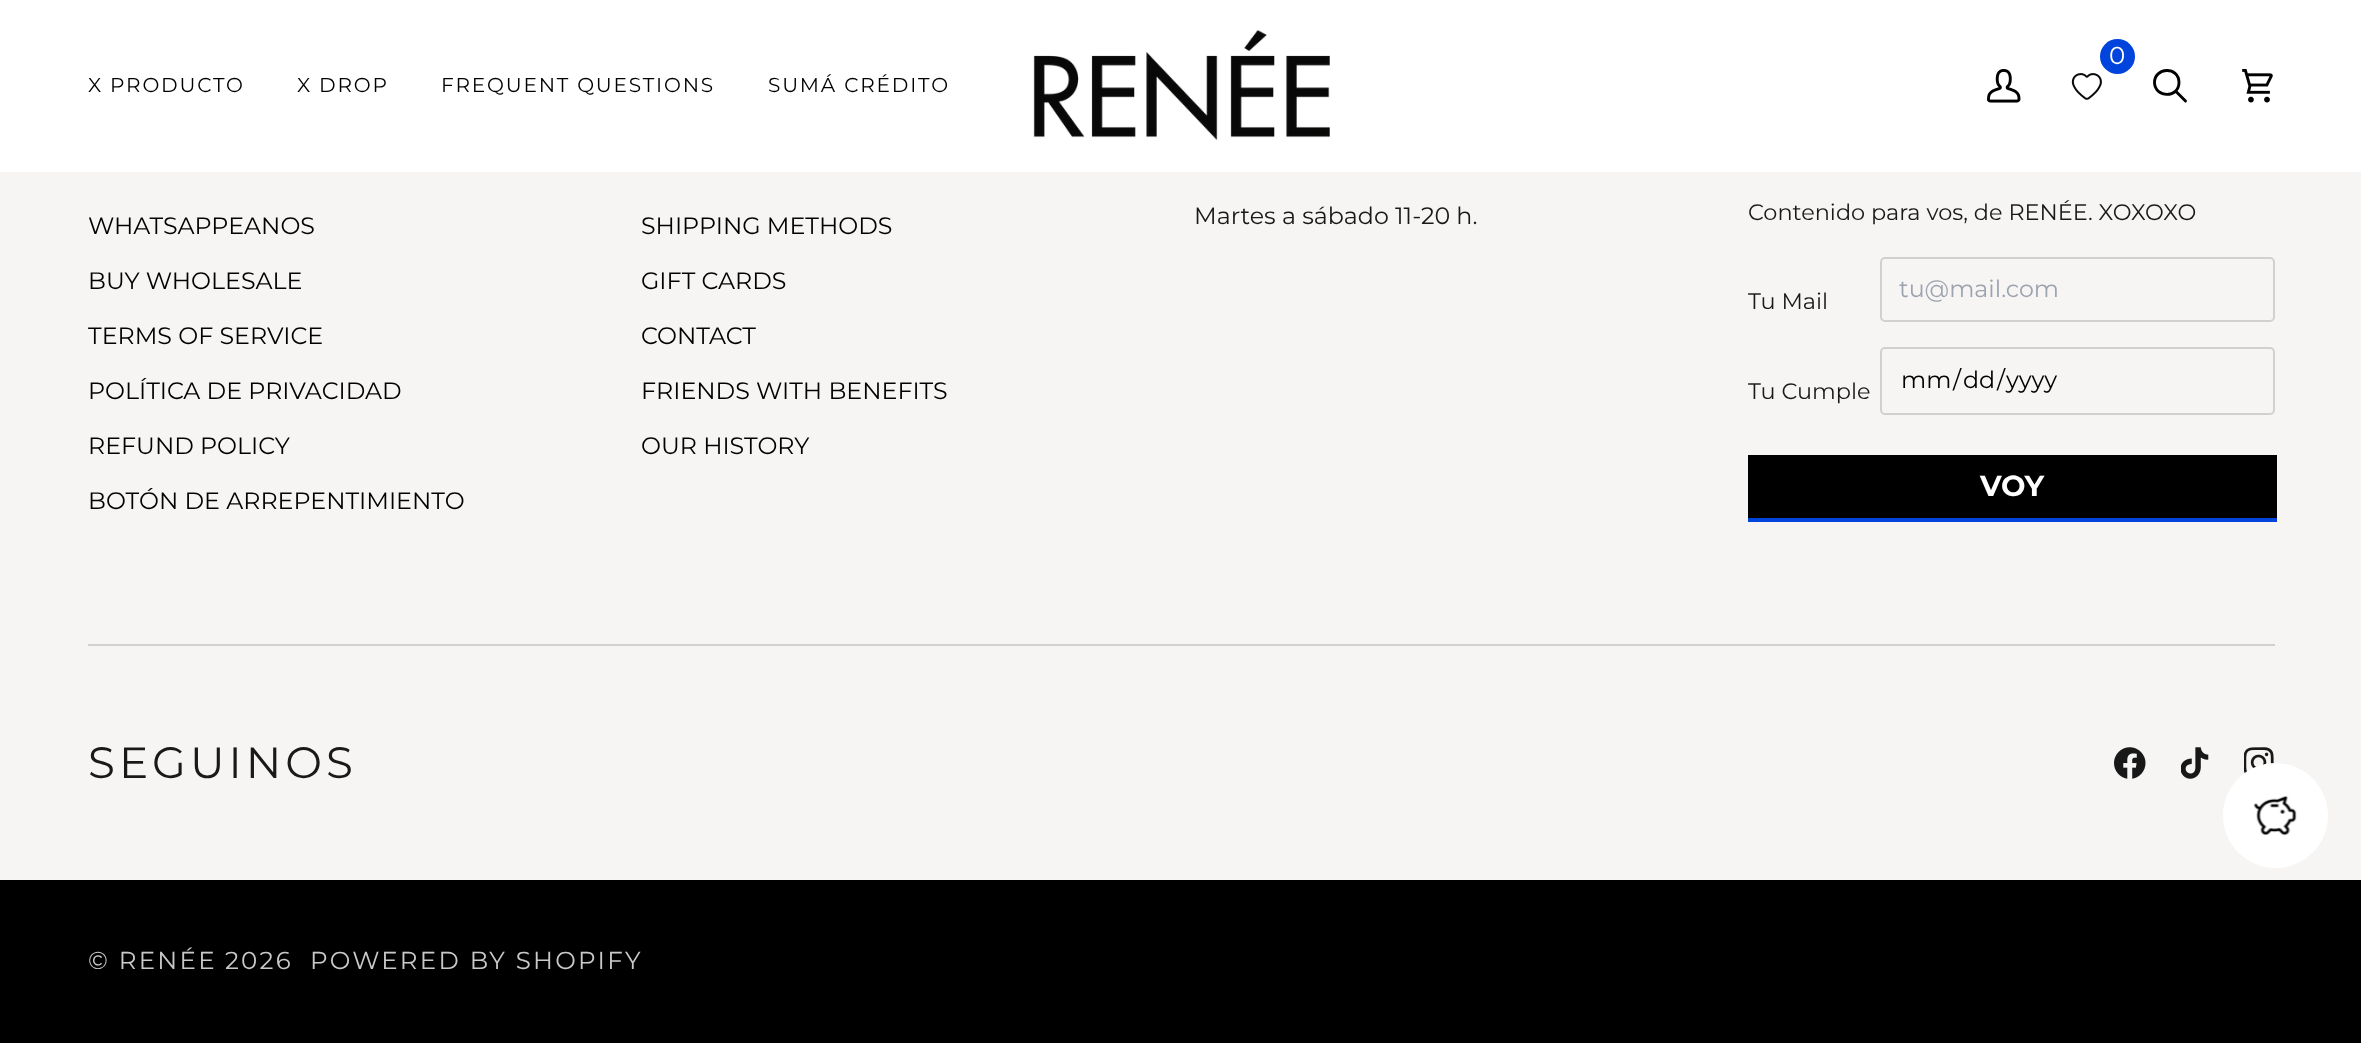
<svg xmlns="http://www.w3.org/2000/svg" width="2361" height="1043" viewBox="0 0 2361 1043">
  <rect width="100%" height="100%" fill="#000"/>
  <path d="M0 0h2361v172H0z" fill="#fff"/>
  <image x="1033" y="29" width="297" height="111" href="img/1.png"/>
  <image x="2071" y="73" width="31" height="27" href="img/2.png"/>
  <circle cx="2117.5" cy="56.5" r="17.5" fill="#04d"/>
  <image x="1987" y="69" width="34" height="34" href="img/3.png"/>
  <path d="M2179 82.5C2179 98 2155.5 98.5 2154.5 83C2154 67 2179 66 2179 82.5ZM2185.5 101L2175.5 91Z" fill="none" stroke="#000" stroke-width="2.9" stroke-linecap="round" stroke-linejoin="round"/>
  <image x="2242" y="69" width="31" height="34" href="img/4.png"/>
  <path d="M0 172h2361v708H0z" fill="#f7f5f4"/>
  <rect x="1881" y="258" width="393" height="63" rx="4" fill="none" stroke="#d2d0cf" stroke-width="2"/>
  <rect x="1881" y="348" width="393" height="66" rx="4" fill="none" stroke="#d2d0cf" stroke-width="2"/>
  <path d="M1748 455h529v63H1748z" fill="#000"/>
  <path d="M1748 518h529v4H1748z" fill="#04d"/>
  <path d="M88 644h2187v2H88z" fill="#d2d0cf"/>
  <image x="2114" y="747" width="32" height="32" href="img/5.png"/>
  <image x="2181" y="747" width="28" height="32" href="img/6.png"/>
  <image x="2244" y="747" width="30" height="27" href="img/7.png"/>
  <circle cx="2275.5" cy="815.5" r="52.5" fill="#fff"/>
  <image x="2253" y="795" width="44" height="41" href="img/8.png"/>
  <text x="2109" y="64" font-family="Montserrat" font-size="24.5" fill="#fff">0</text>
  <g font-family="Montserrat" font-size="20.1" letter-spacing="1.8" fill="#000">
    <text x="88" y="92">X PRODUCTO</text>
    <text x="297" y="92">X DROP</text>
    <text x="441" y="92">FREQUENT QUESTIONS</text>
    <text x="768" y="92">SUMÁ CRÉDITO</text>
  </g>
  <g font-family="Montserrat" font-size="23.75" fill="#000">
    <text x="88" y="234">WHATSAPPEANOS</text>
    <text x="88" y="289">BUY WHOLESALE</text>
    <text x="88" y="344">TERMS OF SERVICE</text>
    <text x="88" y="399">POLÍTICA DE PRIVACIDAD</text>
    <text x="88" y="454">REFUND POLICY</text>
    <text x="88" y="509">BOTÓN DE ARREPENTIMIENTO</text>
    <text x="641" y="234">SHIPPING METHODS</text>
    <text x="641" y="289">GIFT CARDS</text>
    <text x="641" y="344">CONTACT</text>
    <text x="641" y="399">FRIENDS WITH BENEFITS</text>
    <text x="641" y="454">OUR HISTORY</text>
  </g>
  <text x="1194" y="224" font-family="Montserrat" font-size="23.75" fill="#191918">Martes a sábado 11-20 h.</text>
  <g font-family="Montserrat" font-size="22.4" fill="#191918">
    <text x="1748" y="220">Contenido para vos, de RENÉE. XOXOXO</text>
    <text x="1748" y="309">Tu Mail</text>
  </g>
  <text x="1899" y="297" font-family="Montserrat" font-size="23.75" fill="#9ca3af">tu@mail.com</text>
  <text x="1748" y="399" font-family="Montserrat" font-size="22.4" fill="#191918">Tu Cumple</text>
  <g font-family="Montserrat" font-size="23.75" fill="#000">
    <text x="1901" y="388">mm</text>
    <text x="1953" y="388">/</text>
    <text x="1963" y="388">dd</text>
    <text x="1997" y="388">/</text>
    <text x="2006" y="388">yyyy</text>
  </g>
  <text x="1980" y="496" font-family="Montserrat" font-size="29" font-weight="bold" fill="#fff">VOY</text>
  <text x="88" y="778" font-family="Montserrat" font-size="43.75" letter-spacing="4" fill="#191918">SEGUINOS</text>
  <g font-family="Montserrat" font-size="24.5" letter-spacing="2.25" fill="#c9c9c9">
    <text x="88" y="969">© RENÉE</text>
    <text x="225" y="969">2026</text>
    <text x="310" y="969">POWERED BY SHOPIFY</text>
  </g>
</svg>
